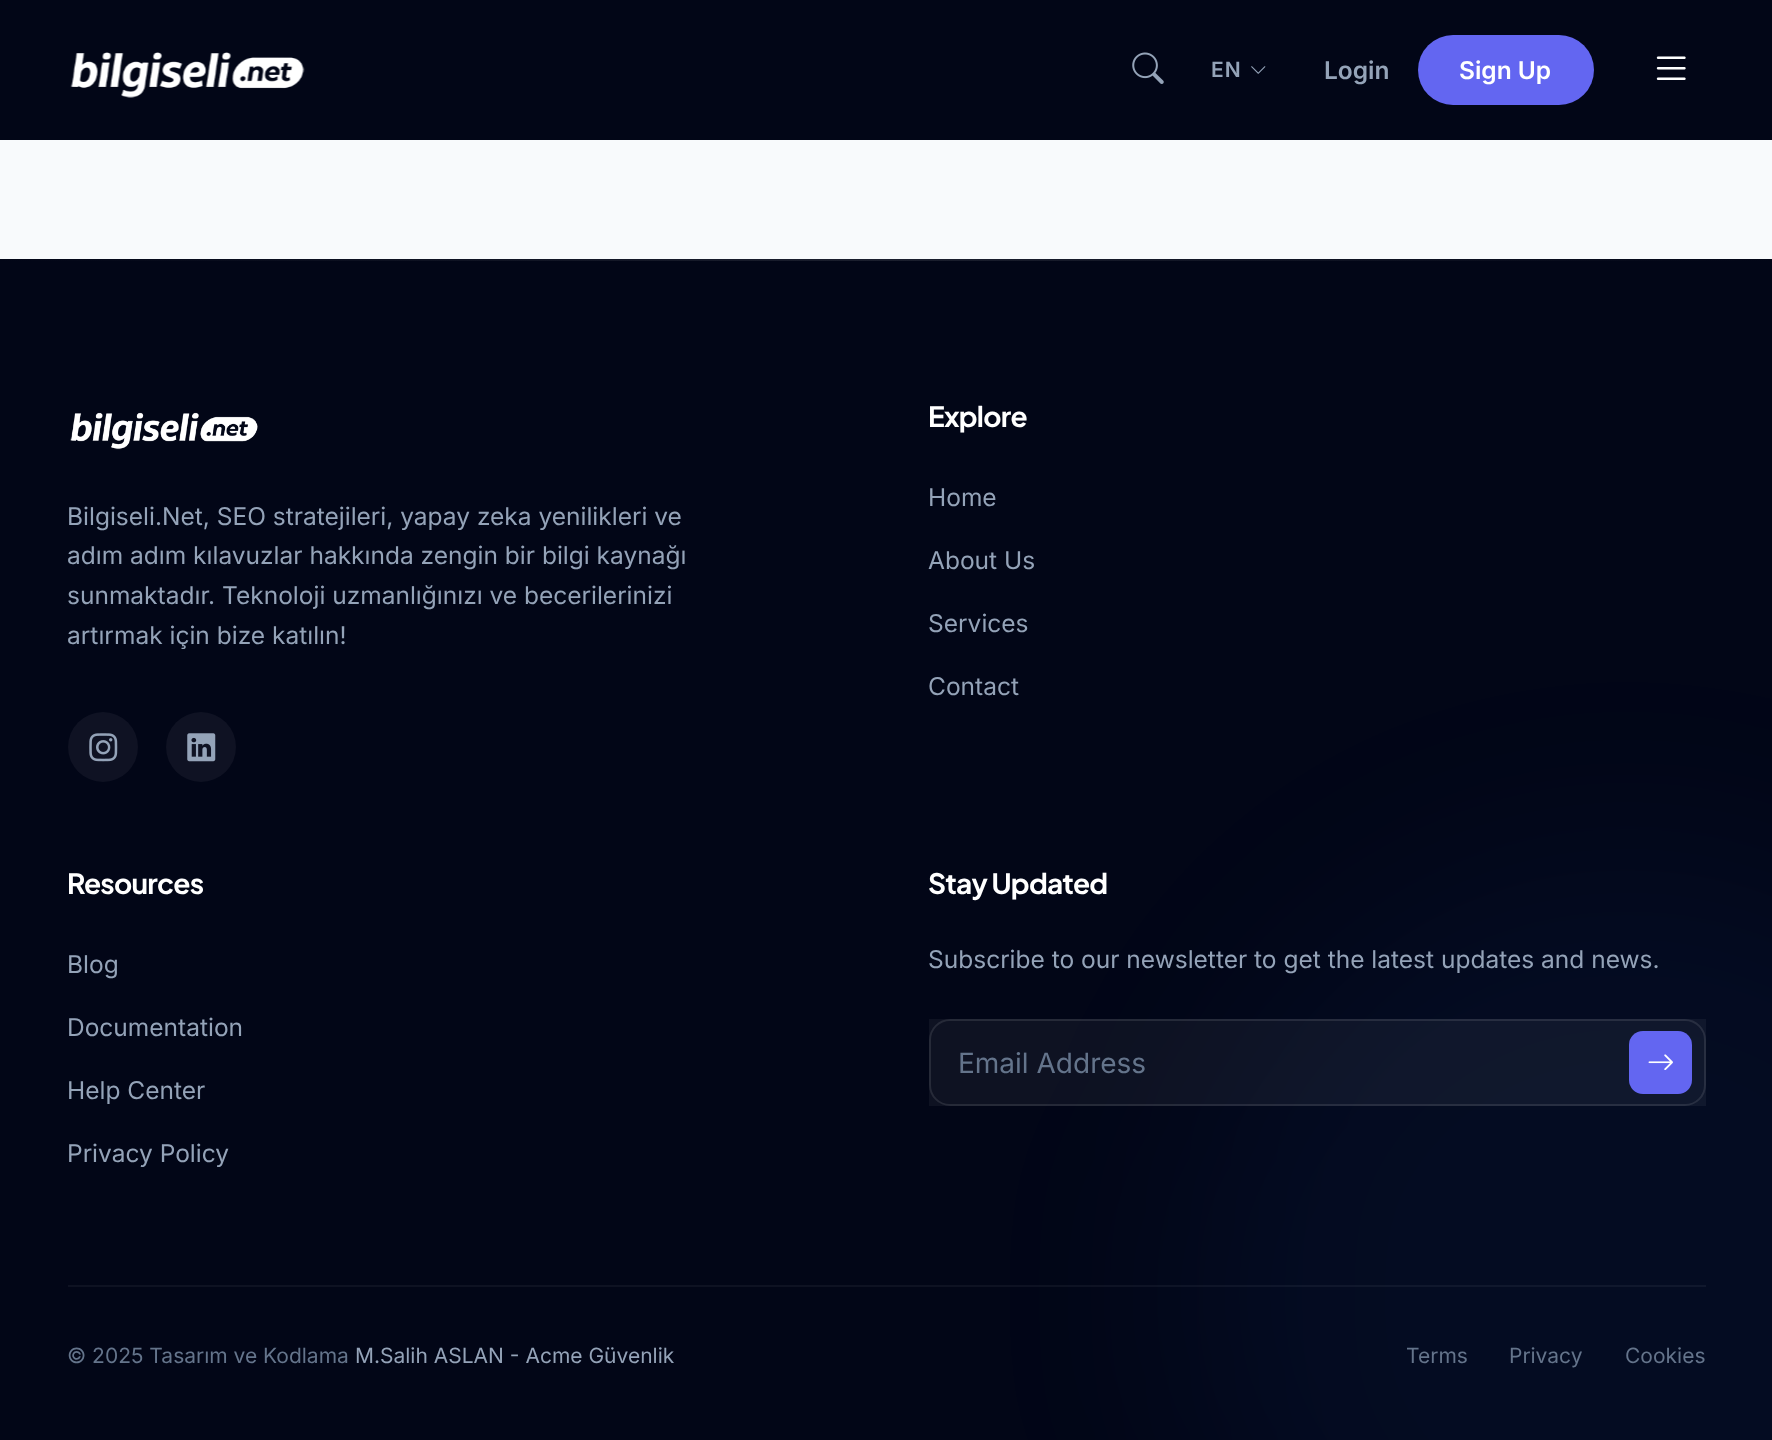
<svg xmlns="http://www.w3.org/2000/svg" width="1772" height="1440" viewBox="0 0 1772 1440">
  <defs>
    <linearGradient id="g1" gradientUnits="userSpaceOnUse" x1="0" y1="260" x2="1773" y2="260"><stop offset="0" stop-color="#020617"/><stop offset="0.5" stop-color="#1b1f2e"/><stop offset="1" stop-color="#020617"/></linearGradient>
  </defs>
  <rect width="100%" height="100%" fill="#f8fafc"/>
  <path d="M0 0h1772v140H0z" fill="#020617"/>
  <image x="70" y="52" width="235" height="46" href="img/1.png"/>
  <image x="1132" y="52" width="32" height="32" href="img/2.png"/>
  <image x="1251" y="66" width="15" height="8" href="img/3.png"/>
  <rect x="1418" y="35" width="176" height="70" rx="35" fill="#6366f1"/>
  <image x="1656" y="56" width="30" height="24" href="img/4.png"/>
  <path d="M0 261h1772v1179H0z" fill="#020617"/>
  <path d="M0 259h1772v2H0z" fill="url(#g1)"/>
  <image x="70" y="412" width="188" height="38" href="img/5.png"/>
  <circle cx="103" cy="747" r="35" fill="#0f1223"/>
  <image x="89" y="733" width="29" height="29" href="img/6.png"/>
  <circle cx="201" cy="747" r="35" fill="#0f1223"/>
  <image x="187" y="733" width="29" height="29" href="img/7.png"/>
  <rect x="1190" y="858" width="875" height="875" rx="437.5" fill="#3b82f60d" filter="blur(112px)"/>
  <path d="M929 1019h777v87H929z" fill="#ffffff0d"/>
  <rect x="930" y="1020" width="775" height="85" rx="20" fill="none" stroke="#ffffff1a" stroke-width="2"/>
  <rect x="1629" y="1031" width="63" height="63" rx="14" fill="#6366f1"/>
  <image x="1648" y="1054" width="25" height="16" href="img/8.png"/>
  <path d="M68 1285h1638v2H68z" fill="#ffffff0d"/>
  <text x="1211" y="77" font-family="Inter" font-size="21" font-weight="600" letter-spacing="1" fill="#94a3b8">EN</text>
  <text x="1324" y="79" font-family="Inter" font-size="24.5" font-weight="600" fill="#94a3b8">Login</text>
  <text x="1459" y="79" font-family="Inter" font-size="24.5" font-weight="600" fill="#fff">Sign Up</text>
  <g font-family="Inter" font-size="24.5" fill="#94a3b8">
    <text x="67" y="525">Bilgiseli.Net, SEO stratejileri, yapay zeka yenilikleri ve</text>
    <text x="67" y="564">adım adım kılavuzlar hakkında zengin bir bilgi kaynağı</text>
    <text x="67" y="604">sunmaktadır. Teknoloji uzmanlığınızı ve becerilerinizi</text>
    <text x="67" y="644">artırmak için bize katılın!</text>
  </g>
  <text x="928" y="427" font-family="Plus Jakarta Sans" font-size="28" font-weight="bold" letter-spacing="-0.75" fill="#fff">Explore</text>
  <g font-family="Inter" font-size="24.5" fill="#94a3b8">
    <text x="928" y="506">Home</text>
    <text x="928" y="569">About Us</text>
    <text x="928" y="632">Services</text>
    <text x="928" y="695">Contact</text>
  </g>
  <text x="67" y="894" font-family="Plus Jakarta Sans" font-size="28" font-weight="bold" letter-spacing="-0.75" fill="#fff">Resources</text>
  <g font-family="Inter" font-size="24.5" fill="#94a3b8">
    <text x="67" y="973">Blog</text>
    <text x="67" y="1036">Documentation</text>
    <text x="67" y="1099">Help Center</text>
    <text x="67" y="1162">Privacy Policy</text>
  </g>
  <text x="928" y="894" font-family="Plus Jakarta Sans" font-size="28" font-weight="bold" letter-spacing="-0.75" fill="#fff">Stay Updated</text>
  <text x="928" y="968" font-family="Inter" font-size="24.5" fill="#94a3b8">Subscribe to our newsletter to get the latest updates and news.</text>
  <text x="958" y="1073" font-family="Inter" font-size="28" fill="#64748b">Email Address</text>
  <text x="67" y="1363" font-family="Inter" font-size="21" fill="#64748b">© 2025 Tasarım ve Kodlama</text>
  <text x="355" y="1363" font-family="Inter" font-size="21" fill="#94a3b8">M.Salih ASLAN - Acme Güvenlik</text>
  <g font-family="Inter" font-size="21" fill="#64748b">
    <text x="1406" y="1363">Terms</text>
    <text x="1509" y="1363">Privacy</text>
    <text x="1625" y="1363">Cookies</text>
  </g>
</svg>
